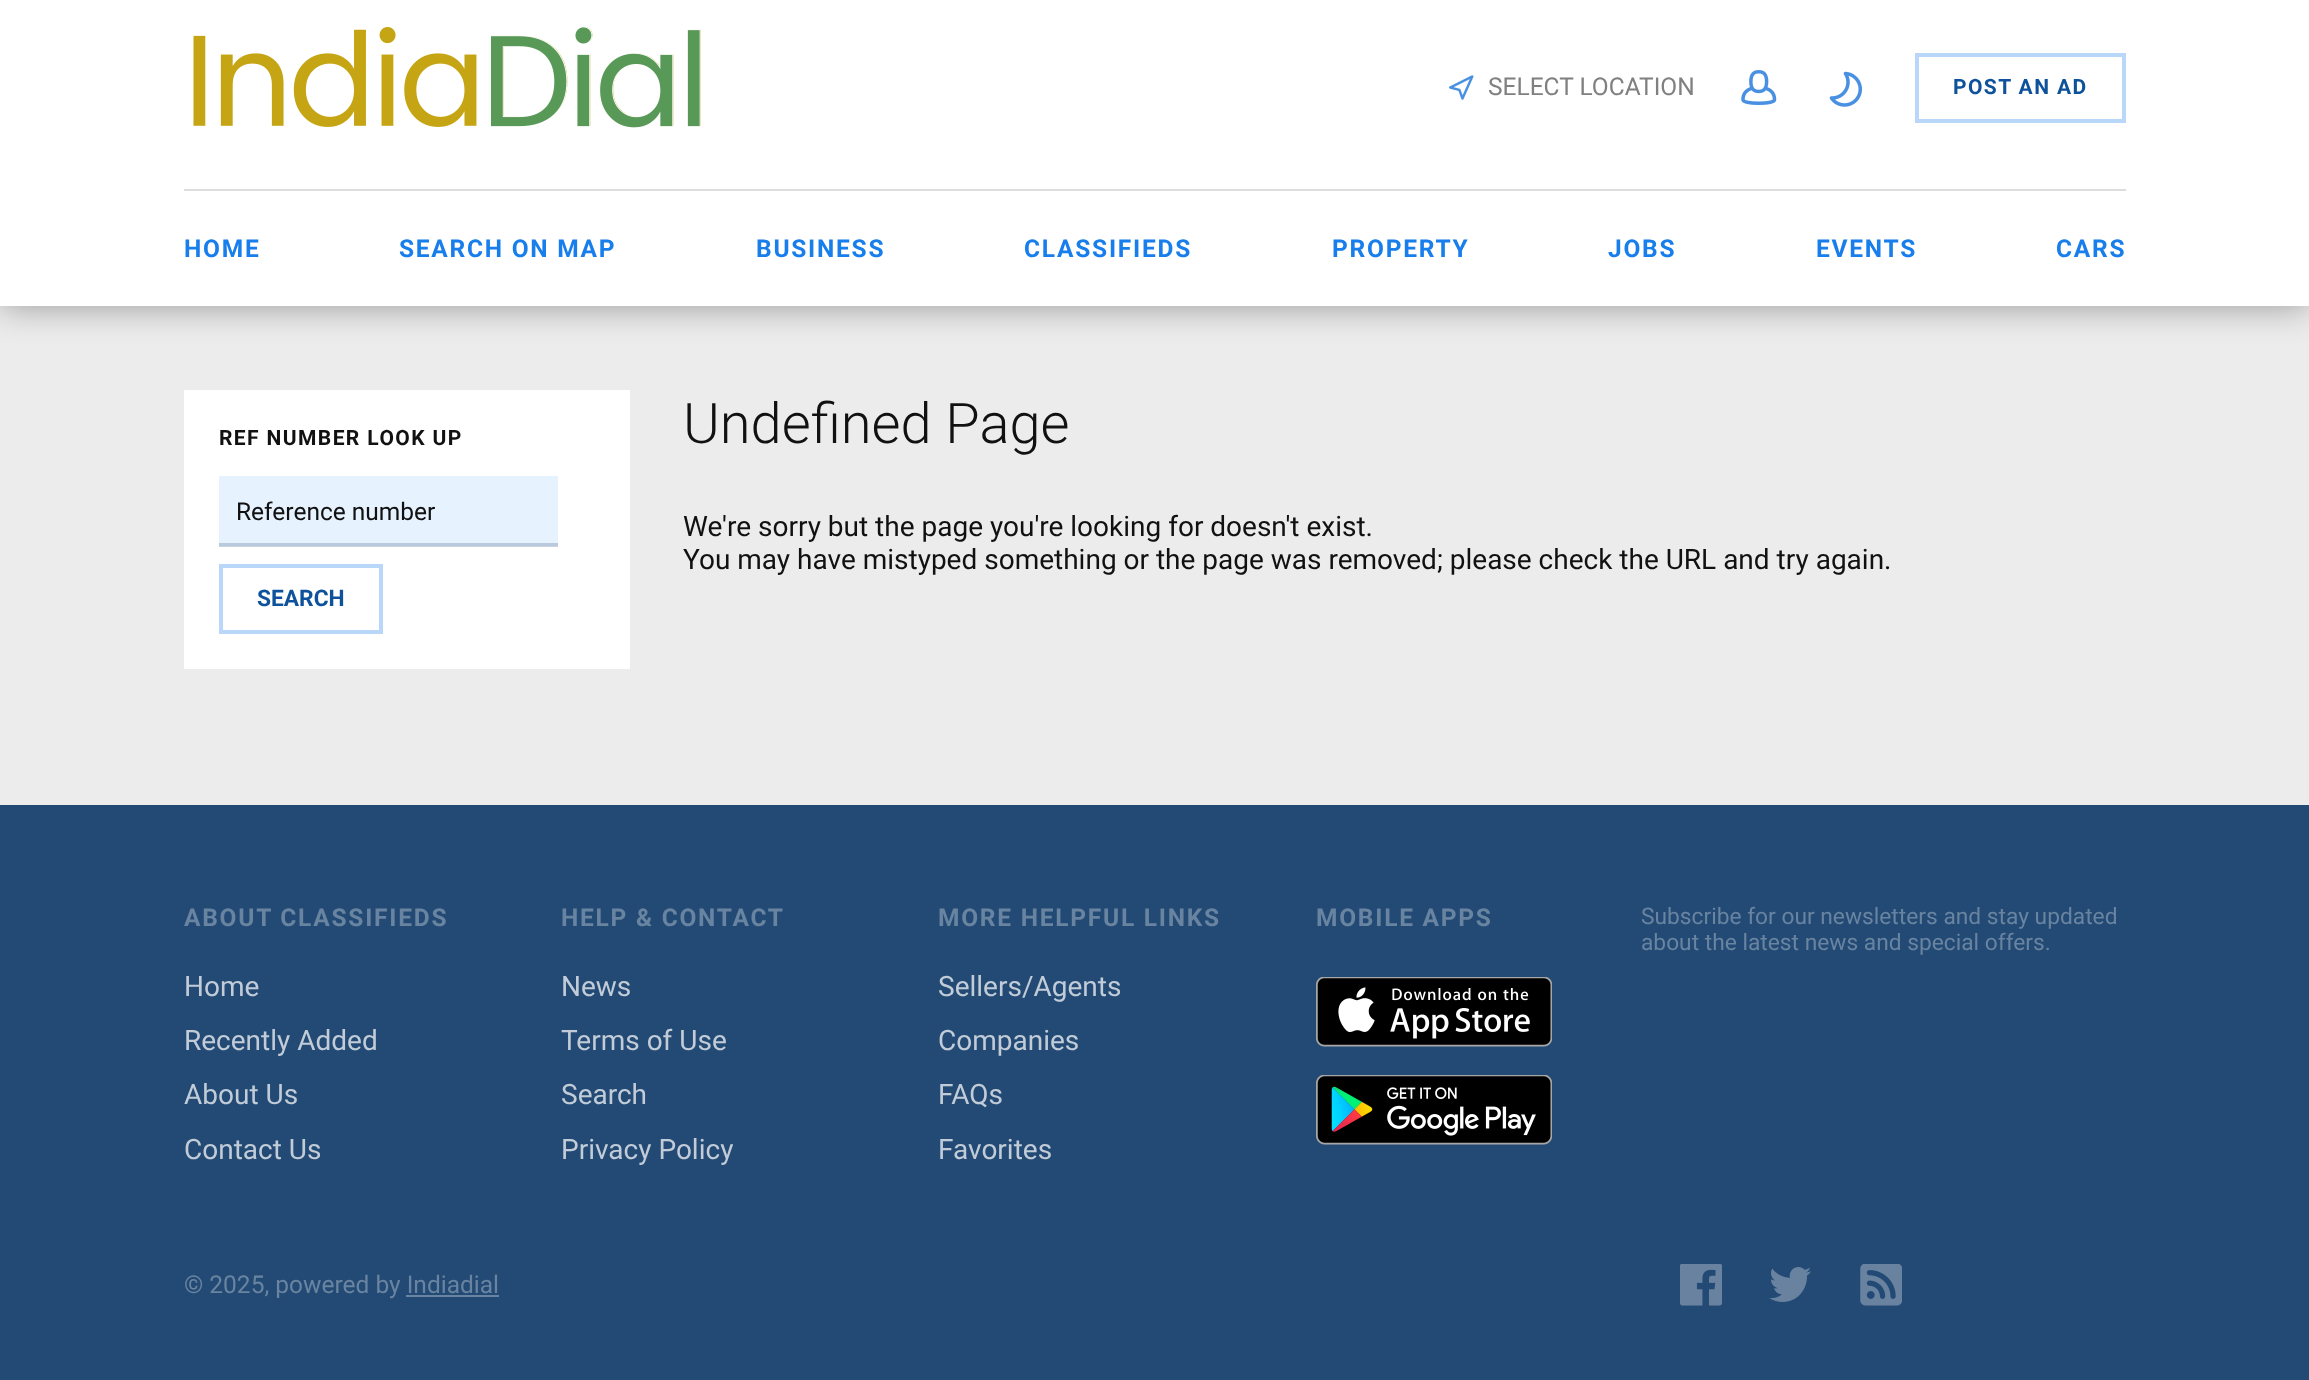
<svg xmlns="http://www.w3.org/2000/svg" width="2309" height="1380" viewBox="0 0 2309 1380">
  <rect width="100%" height="100%" fill="#ececec"/>
  <path d="M0 -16h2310v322H0z" fill="#0000005c" filter="blur(17.5px)"/>
  <path d="M0 0h2309v306H0z" fill="#fff"/>
  <image x="193" y="27" width="508" height="101" href="img/1.png"/>
  <image x="1449" y="75" width="25" height="25" href="img/2.png"/>
  <image x="1741" y="70" width="36" height="35" href="img/3.png"/>
  <image x="1829" y="71" width="33" height="36" href="img/4.png"/>
  <path d="M1917 55h207v66H1917z" fill="none" stroke="#b9d8f9" stroke-width="4"/>
  <path d="M184 189h1942v2H184z" fill="#ddd"/>
  <path d="M184 390h446v279H184z" fill="#fff"/>
  <path d="M219 546h339v1H219z" fill="#cbd4de"/>
  <path d="M219 476h339v67H219z" fill="#e7f2ff"/>
  <path d="M219 543h339v3H219z" fill="#b9cade"/>
  <path d="M221 566h160v66H221z" fill="none" stroke="#b9d8f9" stroke-width="4"/>
  <path d="M0 805h2309v575H0z" fill="#234a74"/>
  <image x="1316" y="977" width="236" height="70" href="img/5.png"/>
  <image x="1316" y="1075" width="236" height="70" href="img/6.png"/>
  <path d="M406 1295h93v2H406z" fill="#6984a0"/>
  <image x="1680" y="1264" width="42" height="42" href="img/7.png"/>
  <image x="1769" y="1267" width="42" height="35" href="img/8.png"/>
  <image x="1860" y="1264" width="42" height="42" href="img/9.png"/>
  <text x="1488" y="95" font-family="Roboto" font-size="24.5" fill="#808080">SELECT LOCATION</text>
  <text x="1953" y="94" font-family="Roboto" font-size="21" font-weight="bold" letter-spacing="1.4" fill="#0d529b">POST AN AD</text>
  <g font-family="Roboto" font-size="24.5" font-weight="bold" letter-spacing="1.75" fill="#177eec">
    <text x="184" y="257">HOME</text>
    <text x="399" y="257">SEARCH ON MAP</text>
    <text x="756" y="257">BUSINESS</text>
    <text x="1024" y="257">CLASSIFIEDS</text>
    <text x="1332" y="257">PROPERTY</text>
    <text x="1608" y="257">JOBS</text>
    <text x="1816" y="257">EVENTS</text>
    <text x="2056" y="257">CARS</text>
  </g>
  <text x="219" y="445" font-family="Roboto" font-size="21" font-weight="bold" letter-spacing="1.4" fill="#111">REF NUMBER LOOK UP</text>
  <text x="236" y="520" font-family="Roboto" font-size="24.5" fill="#111">Reference number</text>
  <text x="257" y="606" font-family="Roboto" font-size="22.75" font-weight="bold" fill="#0d529b">SEARCH</text>
  <text x="683" y="443" font-family="Roboto" font-size="56" font-weight="300" fill="#111">Undefined Page</text>
  <g font-family="Roboto" font-size="28" fill="#111">
    <text x="683" y="536">We're sorry but the page you're looking for doesn't exist.</text>
    <text x="683" y="569">You may have mistyped something or the page was removed; please check the URL and try again.</text>
  </g>
  <text x="184" y="926" font-family="Roboto" font-size="24.5" font-weight="bold" letter-spacing="1.75" fill="#6984a0">ABOUT CLASSIFIEDS</text>
  <g font-family="Roboto" font-size="28" fill="#c1ccd8">
    <text x="184" y="996">Home</text>
    <text x="184" y="1050">Recently Added</text>
    <text x="184" y="1104">About Us</text>
    <text x="184" y="1159">Contact Us</text>
  </g>
  <text x="561" y="926" font-family="Roboto" font-size="24.5" font-weight="bold" letter-spacing="1.75" fill="#6984a0">HELP &amp; CONTACT</text>
  <g font-family="Roboto" font-size="28" fill="#c1ccd8">
    <text x="561" y="996">News</text>
    <text x="561" y="1050">Terms of Use</text>
    <text x="561" y="1104">Search</text>
    <text x="561" y="1159">Privacy Policy</text>
  </g>
  <text x="938" y="926" font-family="Roboto" font-size="24.5" font-weight="bold" letter-spacing="1.75" fill="#6984a0">MORE HELPFUL LINKS</text>
  <g font-family="Roboto" font-size="28" fill="#c1ccd8">
    <text x="938" y="996">Sellers/Agents</text>
    <text x="938" y="1050">Companies</text>
    <text x="938" y="1104">FAQs</text>
    <text x="938" y="1159">Favorites</text>
  </g>
  <text x="1316" y="926" font-family="Roboto" font-size="24.5" font-weight="bold" letter-spacing="1.75" fill="#6984a0">MOBILE APPS</text>
  <g font-family="Roboto" font-size="22.75" fill="#6984a0">
    <text x="1641" y="924">Subscribe for our newsletters and stay updated</text>
    <text x="1641" y="950">about the latest news and special offers.</text>
  </g>
  <text x="184" y="1293" font-family="Roboto" font-size="24.5" fill="#6984a0">© 2025, powered by Indiadial</text>
</svg>
